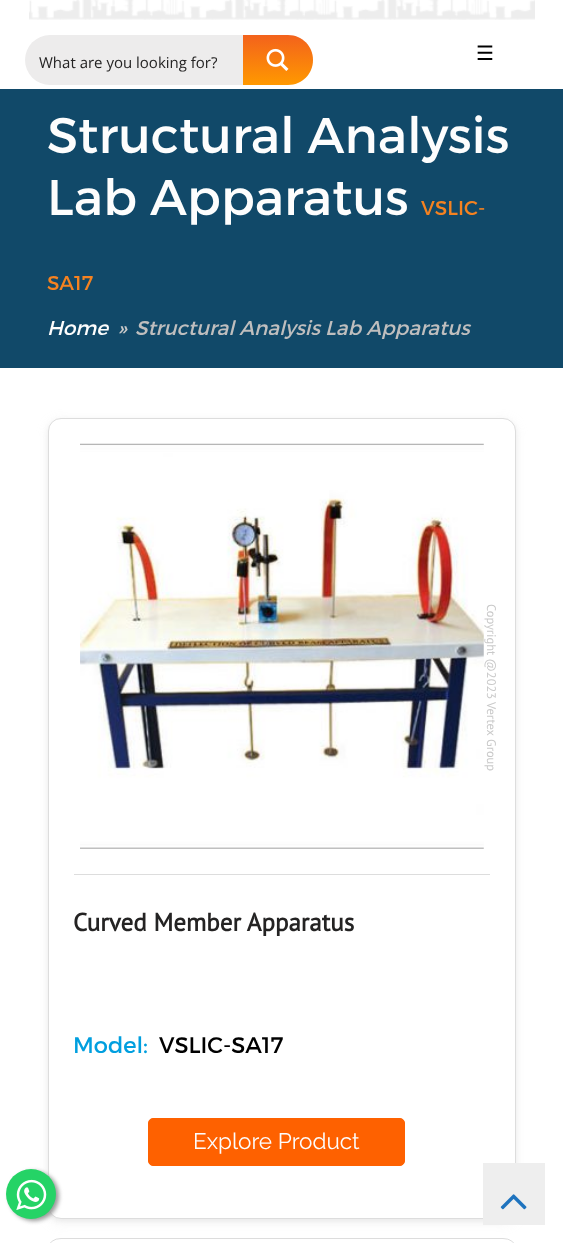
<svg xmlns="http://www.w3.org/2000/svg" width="563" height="1243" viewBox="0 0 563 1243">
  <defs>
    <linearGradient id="g1" gradientUnits="userSpaceOnUse" x1="278" y1="35" x2="278" y2="85"><stop offset="0" stop-color="#f3621c"/><stop offset="1" stop-color="#f90"/></linearGradient>
  </defs>
  <rect width="100%" height="100%" fill="#fff"/>
  <image x="29" y="0" width="506" height="20" href="img/1.png"/>
  <rect x="25" y="35" width="288" height="50" rx="25" fill="#edecec"/>
  <path d="M243 35H288C302 35 313 46 313 60C313 74 302 85 288 85H243Z" fill="url(#g1)"/>
  <image x="266" y="48" width="23" height="23" href="img/2.png"/>
  <path d="M0 89h563v279H0z" fill="#114969"/>
  <rect x="48" y="421" width="468" height="802" rx="13" fill="#c8c8c833" filter="blur(6px)"/>
  <rect x="48" y="420" width="468" height="801" rx="13" fill="#b7b7b733" filter="blur(2.5px)"/>
  <rect x="48.5" y="418.5" width="467" height="800" rx="12.5" fill="#fff" stroke="#ddd"/>
  <image x="80" y="443" width="404" height="406" href="img/3.png"/>
  <path d="M74 874h416v1H74z" fill="#ddd"/>
  <rect x="148.5" y="1118.5" width="256" height="47" rx="4.5" fill="#fe6100" stroke="#fe6100"/>
  <rect x="48.5" y="1238.5" width="467" height="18" rx="12.5" fill="none" stroke="#ddd"/>
  <path d="M483 1163h62v62H483z" fill="#eee"/>
  <image x="500" y="1194" width="27" height="16" href="img/4.png"/>
  <rect x="9" y="1171" width="50" height="50" rx="25" fill="#999" filter="blur(2px)"/>
  <circle cx="31" cy="1194" r="25" fill="#25d366"/>
  <image x="16" y="1179" width="31" height="31" href="img/5.png"/>
  <text x="476" y="60" font-family="DejaVu Sans" font-size="20" fill="#000">☰</text>
  <text x="39" y="68" font-family="Open Sans" font-size="15" fill="#242323">What are you looking for?</text>
  <g font-family="Montserrat" font-size="50" fill="#fdfdfd">
    <text x="47" y="153">Structural Analysis</text>
    <text x="47" y="215">Lab Apparatus</text>
  </g>
  <g font-family="Montserrat" font-size="20" fill="#f58220">
    <text x="421" y="215">VSLIC-</text>
    <text x="47" y="290">SA17</text>
  </g>
  <text x="47" y="335" font-family="Montserrat" font-size="20" font-style="italic" fill="#fdfdfd">Home</text>
  <text x="117" y="335" font-family="Montserrat" font-size="20" font-style="italic" fill="#c9c9c9">»</text>
  <text x="135" y="335" font-family="Montserrat" font-size="20" font-style="italic" fill="#bfbebe">Structural Analysis Lab Apparatus</text>
  <text x="487" y="604" transform="rotate(90 487 604)" font-family="PT Sans" font-size="12.5" fill="#c9c9c9">Copyright @2023 Vertex Group</text>
  <text x="73" y="931" font-family="PT Sans" font-size="25" font-weight="bold" fill="#242323">Curved Member Apparatus</text>
  <text x="73" y="1053" font-family="Montserrat" font-size="22.5" fill="#009fdf">Model:</text>
  <text x="159" y="1053" font-family="Montserrat" font-size="22.5" fill="#000">VSLIC-SA17</text>
  <text x="193" y="1149" font-family="Raleway" font-size="22.5" fill="#fdfdfd">Explore Product</text>
</svg>
